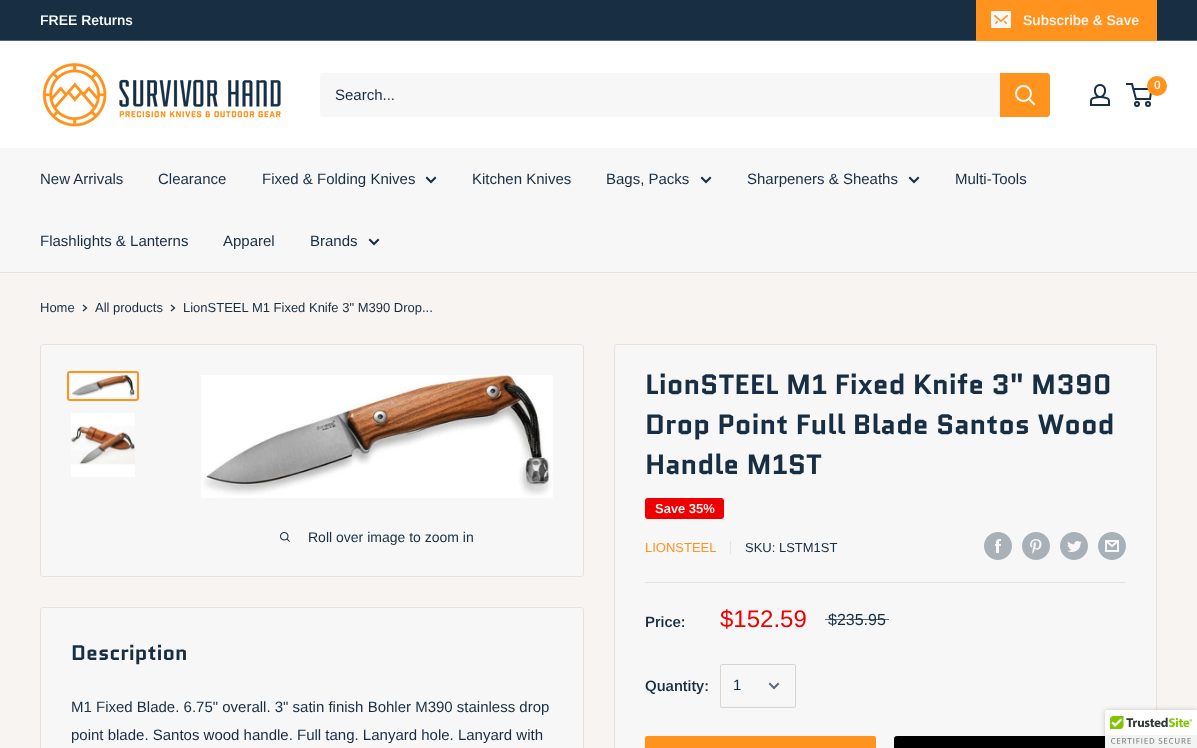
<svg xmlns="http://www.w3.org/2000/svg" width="1197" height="748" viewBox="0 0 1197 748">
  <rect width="100%" height="100%" fill="#f7f4f2"/>
  <path d="M0 0h1197v40H0z" fill="#172e43"/>
  <path d="M0 40h1197v1H0z" fill="#566471"/>
  <path d="M976 0h181v41H976z" fill="#ff931e"/>
  <image x="991" y="11" width="20" height="17" href="img/1.png"/>
  <path d="M0 41h1197v107H0z" fill="#fff"/>
  <image x="42" y="63" width="239" height="64" href="img/2.png"/>
  <image x="1090" y="84" width="20" height="22" href="img/3.png"/>
  <circle cx="1137" cy="104" r="2" fill="none" stroke="#172e43" stroke-width="2"/>
  <circle cx="1148" cy="104" r="2" fill="none" stroke="#172e43" stroke-width="2"/>
  <path d="M1133.5 89H1151.5L1150 99H1136L1132 84H1126" fill="none" stroke="#172e43" stroke-width="2"/>
  <circle cx="1157" cy="86" r="10" fill="#ff931e"/>
  <rect x="320" y="73" width="730" height="44" rx="3" fill="#f7f7f7"/>
  <path d="M1000 73H1047C1048.5 73 1050 74.5 1050 76V114C1050 115.5 1048.5 117 1047 117H1000Z" fill="#ff931e"/>
  <path d="M1034 104L1029 99" fill="none" stroke="#f7f7f7" stroke-width="2" stroke-linecap="square"/>
  <circle cx="1023.5" cy="93.5" r="7.5" fill="none" stroke="#f7f7f7" stroke-width="2"/>
  <path d="M0 148h1197v124H0z" fill="#f7f7f7"/>
  <path d="M0 272h1197v1H0z" fill="#e7e2de"/>
  <path d="M435 178L431 182L427 178" fill="none" stroke="#172e43" stroke-width="2" stroke-linecap="square"/>
  <path d="M710 178L706 182L702 178" fill="none" stroke="#172e43" stroke-width="2" stroke-linecap="square"/>
  <path d="M918 178L914 182L910 178" fill="none" stroke="#172e43" stroke-width="2" stroke-linecap="square"/>
  <path d="M378 240L374 244L370 240" fill="none" stroke="#172e43" stroke-width="2" stroke-linecap="square"/>
  <path d="M83.5 305.5L86.5 308L83.5 310.5" fill="none" stroke="#172e43" stroke-width="1.3" stroke-linecap="square"/>
  <path d="M171.5 305.5L174.5 308L171.5 310.5" fill="none" stroke="#172e43" stroke-width="1.3" stroke-linecap="square"/>
  <rect x="40.5" y="344.5" width="543" height="232" rx="2.5" fill="#f7f7f7" stroke="#e7e2de"/>
  <rect x="68" y="372" width="70" height="28" rx="2" fill="none" stroke="#ff931e" stroke-width="2"/>
  <image x="71" y="375" width="64" height="22" href="img/4.png"/>
  <image x="71" y="413" width="64" height="64" href="img/5.png"/>
  <image x="201" y="375" width="352" height="123" href="img/6.png"/>
  <image x="280" y="532" width="10" height="10" href="img/7.png"/>
  <rect x="614.5" y="344.5" width="542" height="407" rx="2.5" fill="#f7f7f7" stroke="#e7e2de"/>
  <rect x="645" y="498" width="79" height="21" rx="3" fill="#e00"/>
  <path d="M730 541h1v13H730z" fill="#e7e2de"/>
  <image x="984" y="532" width="28" height="28" href="img/8.png"/>
  <image x="1022" y="532" width="28" height="28" href="img/9.png"/>
  <image x="1060" y="532" width="28" height="28" href="img/10.png"/>
  <image x="1098" y="532" width="28" height="28" href="img/11.png"/>
  <path d="M645 582h481v1H645z" fill="#e7e2de"/>
  <path d="M721 705L722 707H794C795 707 795 706 795 705L794 706H722Z" fill="#f2f1f0"/>
  <rect x="720.5" y="664.5" width="75" height="43" rx="1.5" fill="none" stroke="#dcd5cf"/>
  <path d="M778 684L774 688L770 684" fill="none" stroke="#5a6a79" stroke-width="2" stroke-linecap="square"/>
  <rect x="645" y="736" width="231" height="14" rx="2" fill="#ff931e"/>
  <rect x="894" y="736" width="232" height="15" rx="3" fill="#000"/>
  <rect x="40.5" y="607.5" width="543" height="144" rx="2.5" fill="#f7f7f7" stroke="#e7e2de"/>
  <rect x="1105" y="710" width="92" height="38" rx="2" fill="#00000033" filter="blur(2.5px)"/>
  <path d="M1107 710H1197V748H1105V712C1105 711 1106 710 1107 710Z" fill="#fff"/>
  <image x="1105" y="710" width="92" height="38" href="img/12.png"/>
  <text x="40" y="25" font-family="Arimo" font-size="14" font-weight="600" fill="#fff">FREE Returns</text>
  <text x="1023" y="25" font-family="Arimo" font-size="14" font-weight="600" fill="#f7f7f7">Subscribe &amp; Save</text>
  <text x="1154" y="89" font-family="Arimo" font-size="12" font-weight="600" fill="#f7f7f7">0</text>
  <g font-family="Arimo" font-size="15" fill="#172e43">
    <text x="335" y="100">Search...</text>
    <text x="40" y="184">New Arrivals</text>
    <text x="158" y="184">Clearance</text>
    <text x="262" y="184">Fixed &amp; Folding Knives</text>
    <text x="472" y="184">Kitchen Knives</text>
    <text x="606" y="184">Bags, Packs</text>
    <text x="747" y="184">Sharpeners &amp; Sheaths</text>
    <text x="955" y="184">Multi-Tools</text>
    <text x="40" y="246">Flashlights &amp; Lanterns</text>
    <text x="223" y="246">Apparel</text>
    <text x="310" y="246">Brands</text>
  </g>
  <g font-family="Arimo" font-size="13" fill="#172e43">
    <text x="40" y="312">Home</text>
    <text x="95" y="312">All products</text>
    <text x="183" y="312">LionSTEEL M1 Fixed Knife 3" M390 Drop...</text>
  </g>
  <text x="308" y="542" font-family="Arimo" font-size="14" fill="#172e43">Roll over image to zoom in</text>
  <g font-family="Quantico" font-size="28" font-weight="bold" fill="#172e43">
    <text x="645" y="394">LionSTEEL M1 Fixed Knife 3" M390</text>
    <text x="645" y="434">Drop Point Full Blade Santos Wood</text>
    <text x="645" y="474">Handle M1ST</text>
  </g>
  <text x="655" y="513" font-family="Arimo" font-size="13" font-weight="600" fill="#fff">Save 35%</text>
  <text x="645" y="552" font-family="Arimo" font-size="13" fill="#ff931e">LIONSTEEL</text>
  <text x="745" y="552" font-family="Arimo" font-size="13" fill="#172e43">SKU: LSTM1ST</text>
  <text x="645" y="627" font-family="Arimo" font-size="15" font-weight="600" fill="#172e43">Price:</text>
  <text x="720" y="627" font-family="Arimo" font-size="24" fill="#e00">$152.59</text>
  <text x="828" y="625" font-family="Arimo" font-size="16" fill="#172e43">$235.95</text>
  <path d="M825 619h64v1H825z" fill="#172e43b3"/>
  <text x="645" y="691" font-family="Arimo" font-size="15" font-weight="600" fill="#172e43">Quantity:</text>
  <text x="733" y="690" font-family="Arimo" font-size="15" fill="#172e43">1</text>
  <text x="71" y="660" font-family="Quantico" font-size="21" font-weight="bold" fill="#172e43">Description</text>
  <g font-family="Arimo" font-size="15" fill="#172e43">
    <text x="71" y="712">M1 Fixed Blade. 6.75" overall. 3" satin finish Bohler M390 stainless drop</text>
    <text x="71" y="740">point blade. Santos wood handle. Full tang. Lanyard hole. Lanyard with</text>
  </g>
</svg>
